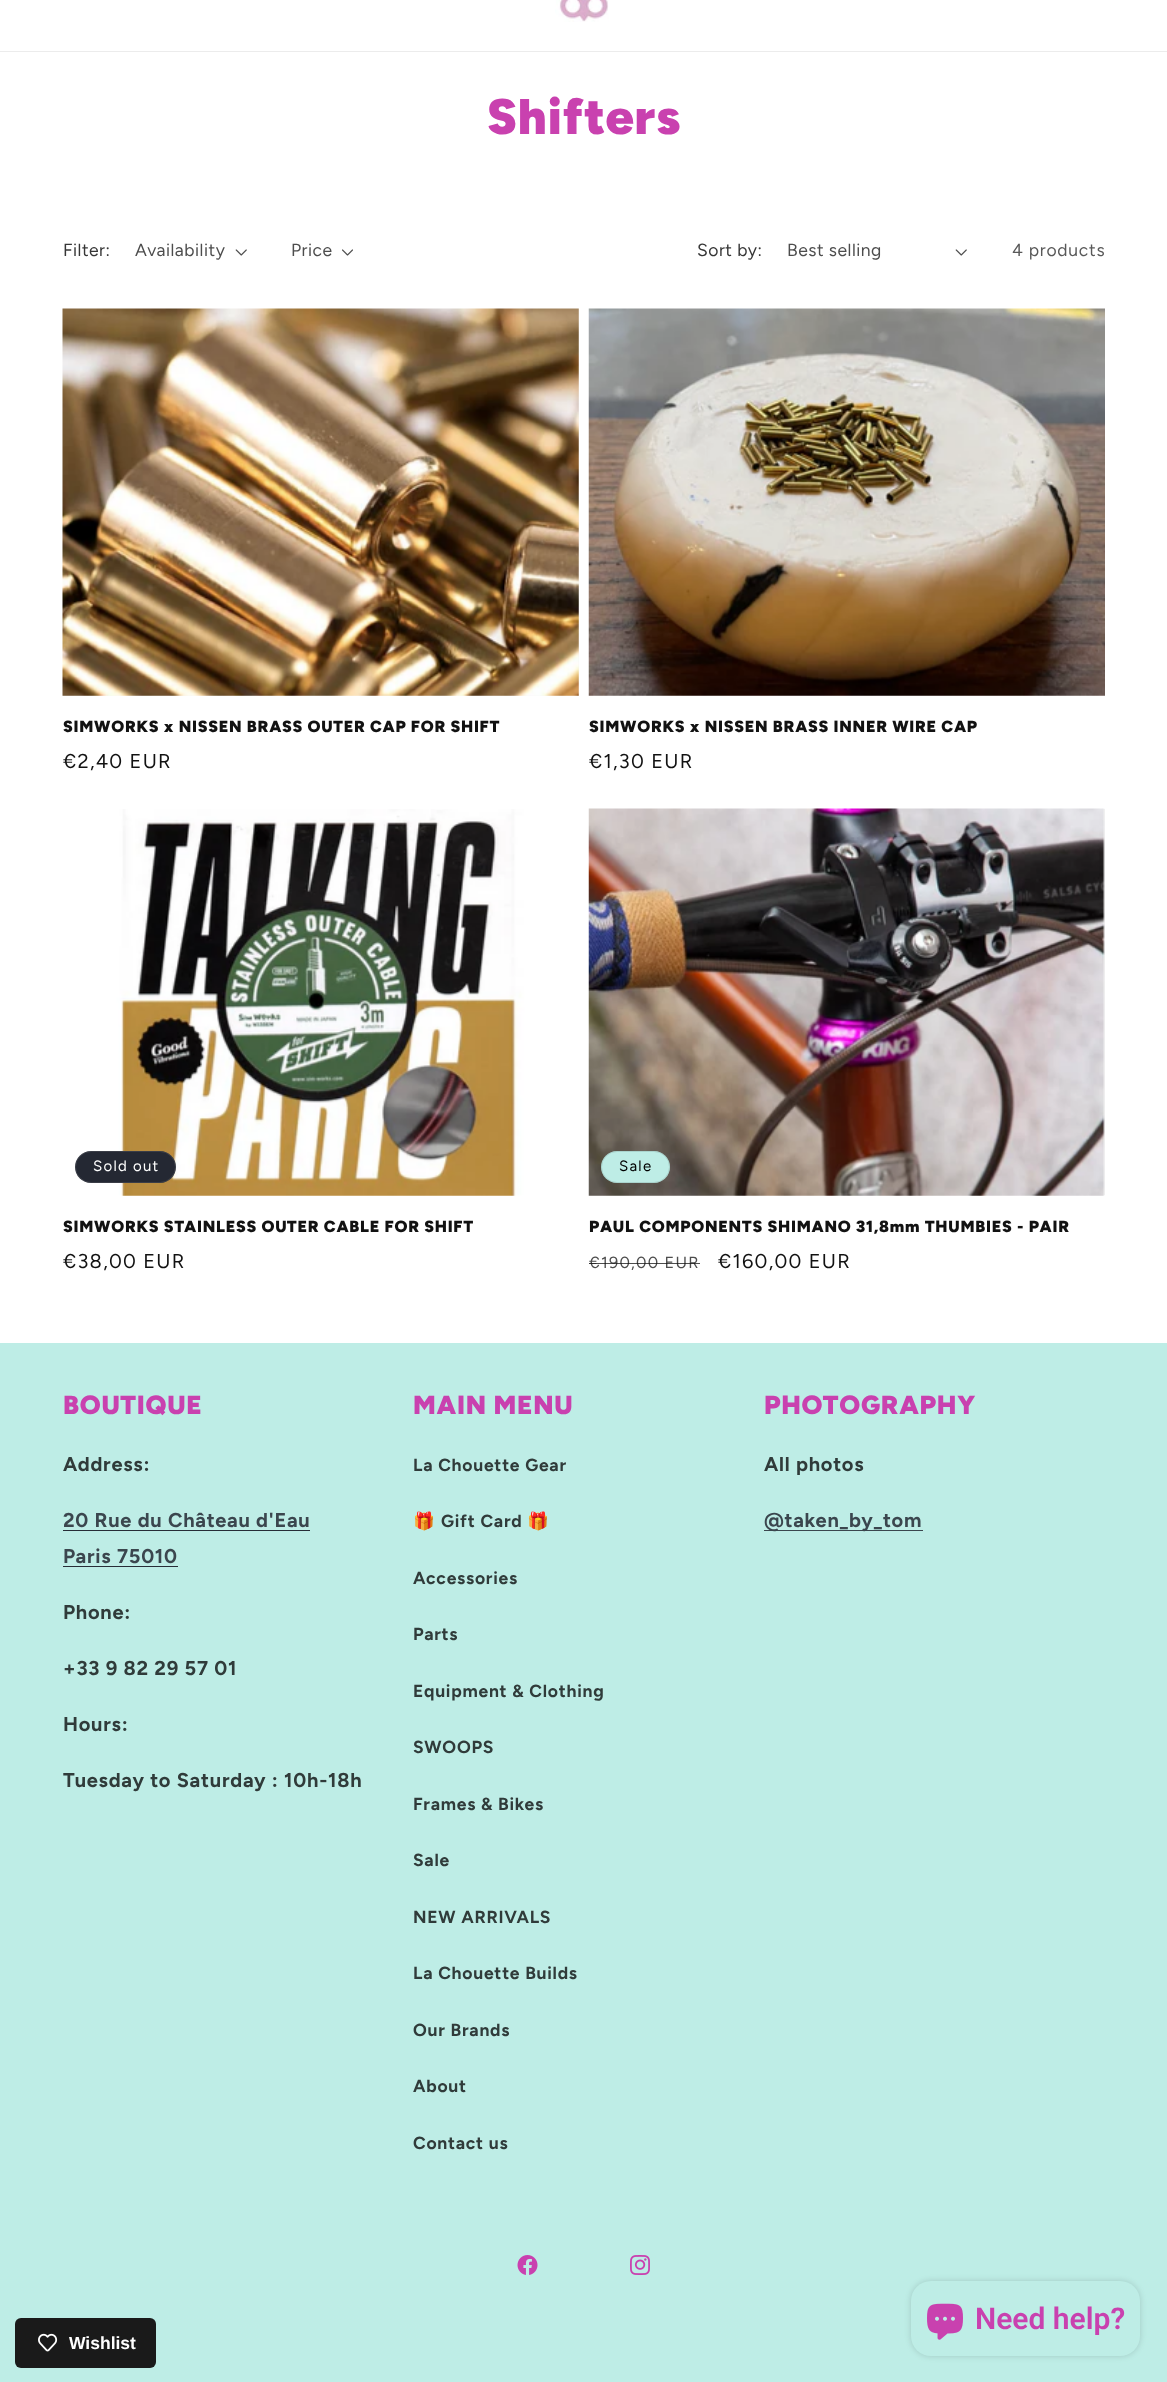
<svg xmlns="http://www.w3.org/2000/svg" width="1167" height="2382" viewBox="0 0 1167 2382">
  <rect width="100%" height="100%" fill="#fff"/>
  <path d="M0 51h1167v1H0z" fill="#ececec"/>
  <image x="555" y="0" width="54" height="22" href="img/1.png"/>
  <image x="235" y="249" width="12" height="7" href="img/2.png"/>
  <image x="342" y="249" width="11" height="7" href="img/3.png"/>
  <image x="955" y="249" width="12" height="7" href="img/2.png"/>
  <path d="M63 309h516v387H63z" fill="#f3f3f3"/>
  <image x="62" y="308" width="517" height="388" href="img/4.png"/>
  <image x="588" y="308" width="517" height="388" href="img/5.png"/>
  <image x="63" y="809" width="516" height="387" href="img/6.png"/>
  <rect x="75" y="1151" width="101" height="32" rx="16" fill="#242833"/>
  <rect x="75.5" y="1151.5" width="100" height="31" rx="15.5" fill="none" stroke="#ffffff1a"/>
  <path d="M1102 809h3v386H1102z" fill="#f3f3f3"/>
  <image x="588" y="808" width="517" height="388" href="img/7.png"/>
  <rect x="601" y="1151" width="69" height="32" rx="16" fill="#beede6"/>
  <rect x="601.5" y="1151.5" width="68" height="31" rx="15.5" fill="none" stroke="#0000001a"/>
  <path d="M0 1343h1167v1039H0z" fill="#beede6"/>
  <path d="M63 1530h247v1H63z" fill="#272d37"/>
  <path d="M63 1566h115v1H63z" fill="#272d37"/>
  <path d="M764 1530h159v1H764z" fill="#3b464e"/>
  <image x="517" y="2255" width="21" height="20" href="img/8.png"/>
  <image x="630" y="2255" width="20" height="20" href="img/9.png"/>
  <rect x="911" y="2281" width="229" height="75" rx="20" fill="#00000026" filter="blur(3px)"/>
  <rect x="911" y="2281" width="229" height="75" rx="20" fill="#beede6"/>
  <image x="927" y="2303" width="36" height="37" href="img/10.png"/>
  <rect x="15" y="2318" width="141" height="50" rx="6" fill="#1a1a1a"/>
  <image x="38" y="2333" width="20" height="19" href="img/11.png"/>
  <text x="487" y="134" font-family="Figtree" font-size="50" font-weight="900" letter-spacing="0.75" fill="#c941af">Shifters</text>
  <text x="63" y="256" font-family="Figtree" font-size="17.5" letter-spacing="0.5" fill="#363636">Filter:</text>
  <g font-family="Figtree" font-size="17.5" letter-spacing="0.5" fill="#4d4d4d">
    <text x="135" y="256">Availability</text>
    <text x="291" y="256">Price</text>
  </g>
  <text x="697" y="256" font-family="Figtree" font-size="17.5" letter-spacing="0.5" fill="#363636">Sort by:</text>
  <text x="787" y="256" font-family="Figtree" font-size="17.5" letter-spacing="0.5" fill="#4d4d4d">Best selling</text>
  <text x="1012" y="256" font-family="Figtree" font-size="17.5" letter-spacing="0.75" fill="#595959">4 products</text>
  <text x="63" y="732" font-family="Figtree" font-size="16.25" font-weight="900" letter-spacing="0.75" fill="#121212">SIMWORKS x NISSEN BRASS OUTER CAP FOR SHIFT</text>
  <text x="63" y="768" font-family="Figtree" font-size="20" letter-spacing="1.25" fill="#121212">€2,40 EUR</text>
  <text x="589" y="732" font-family="Figtree" font-size="16.25" font-weight="900" letter-spacing="0.75" fill="#121212">SIMWORKS x NISSEN BRASS INNER WIRE CAP</text>
  <text x="589" y="768" font-family="Figtree" font-size="20" letter-spacing="1.25" fill="#121212">€1,30 EUR</text>
  <text x="93" y="1171" font-family="Figtree" font-size="15" letter-spacing="1.25" fill="#fff">Sold out</text>
  <text x="63" y="1232" font-family="Figtree" font-size="16.25" font-weight="900" letter-spacing="0.75" fill="#121212">SIMWORKS STAINLESS OUTER CABLE FOR SHIFT</text>
  <text x="63" y="1268" font-family="Figtree" font-size="20" letter-spacing="1.25" fill="#121212">€38,00 EUR</text>
  <text x="619" y="1171" font-family="Figtree" font-size="15" letter-spacing="1.25" fill="#000">Sale</text>
  <text x="589" y="1232" font-family="Figtree" font-size="16.25" font-weight="900" letter-spacing="0.75" fill="#121212">PAUL COMPONENTS SHIMANO 31,8mm THUMBIES - PAIR</text>
  <text x="589" y="1268" font-family="Figtree" font-size="16.25" letter-spacing="1.25" fill="#4d4d4d">€190,00 EUR</text>
  <path d="M589 1263h111v1H589z" fill="#121212bf"/>
  <text x="718" y="1268" font-family="Figtree" font-size="20" letter-spacing="1.25" fill="#121212">€160,00 EUR</text>
  <text x="63" y="1414" font-family="Figtree" font-size="26.25" font-weight="900" letter-spacing="0.75" fill="#c941af">BOUTIQUE</text>
  <text x="63" y="1471" font-family="Figtree" font-size="20" font-weight="bold" letter-spacing="0.75" fill="#303b3a">Address:</text>
  <g font-family="Figtree" font-size="20" font-weight="bold" letter-spacing="0.75" fill="#3b464e">
    <text x="63" y="1527">20 Rue du Château d'Eau</text>
    <text x="63" y="1563">Paris 75010</text>
  </g>
  <g font-family="Figtree" font-size="20" font-weight="bold" letter-spacing="0.75" fill="#303b3a">
    <text x="63" y="1619">Phone:</text>
    <text x="63" y="1675">+33 9 82 29 57 01</text>
    <text x="63" y="1731">Hours:</text>
    <text x="63" y="1787">Tuesday to Saturday : 10h-18h</text>
  </g>
  <text x="413" y="1414" font-family="Figtree" font-size="26.25" font-weight="900" letter-spacing="0.75" fill="#c941af">MAIN MENU</text>
  <text x="413" y="1471" font-family="Figtree" font-size="17.5" font-weight="bold" letter-spacing="0.75" fill="#303b3a">La Chouette Gear</text>
  <text x="413" y="1527" font-family="Noto Color Emoji" font-size="17.5" font-weight="bold" letter-spacing="0.75" fill="#303b3a">🎁</text>
  <text x="441" y="1527" font-family="Figtree" font-size="17.5" font-weight="bold" letter-spacing="0.75" fill="#303b3a">Gift Card</text>
  <text x="527" y="1527" font-family="Noto Color Emoji" font-size="17.5" font-weight="bold" letter-spacing="0.75" fill="#303b3a">🎁</text>
  <g font-family="Figtree" font-size="17.5" font-weight="bold" letter-spacing="0.75" fill="#303b3a">
    <text x="413" y="1584">Accessories</text>
    <text x="413" y="1640">Parts</text>
    <text x="413" y="1697">Equipment &amp; Clothing</text>
    <text x="413" y="1753">SWOOPS</text>
    <text x="413" y="1810">Frames &amp; Bikes</text>
    <text x="413" y="1866">Sale</text>
    <text x="413" y="1923">NEW ARRIVALS</text>
    <text x="413" y="1979">La Chouette Builds</text>
    <text x="413" y="2036">Our Brands</text>
    <text x="413" y="2092">About</text>
    <text x="413" y="2149">Contact us</text>
  </g>
  <text x="764" y="1414" font-family="Figtree" font-size="26.25" font-weight="900" letter-spacing="0.75" fill="#c941af">PHOTOGRAPHY</text>
  <text x="764" y="1471" font-family="Figtree" font-size="20" font-weight="bold" letter-spacing="0.75" fill="#303b3a">All photos</text>
  <text x="764" y="1527" font-family="Figtree" font-size="20" font-weight="bold" letter-spacing="0.75" fill="#3b464e">@taken_by_tom</text>
  <text x="975" y="2329" font-family="Roboto" font-size="30" font-weight="600" fill="#c941af">Need help?</text>
  <text x="69" y="2349" font-family="Liberation Sans" font-size="17.5" font-weight="bold" fill="#fff">Wishlist</text>
</svg>
